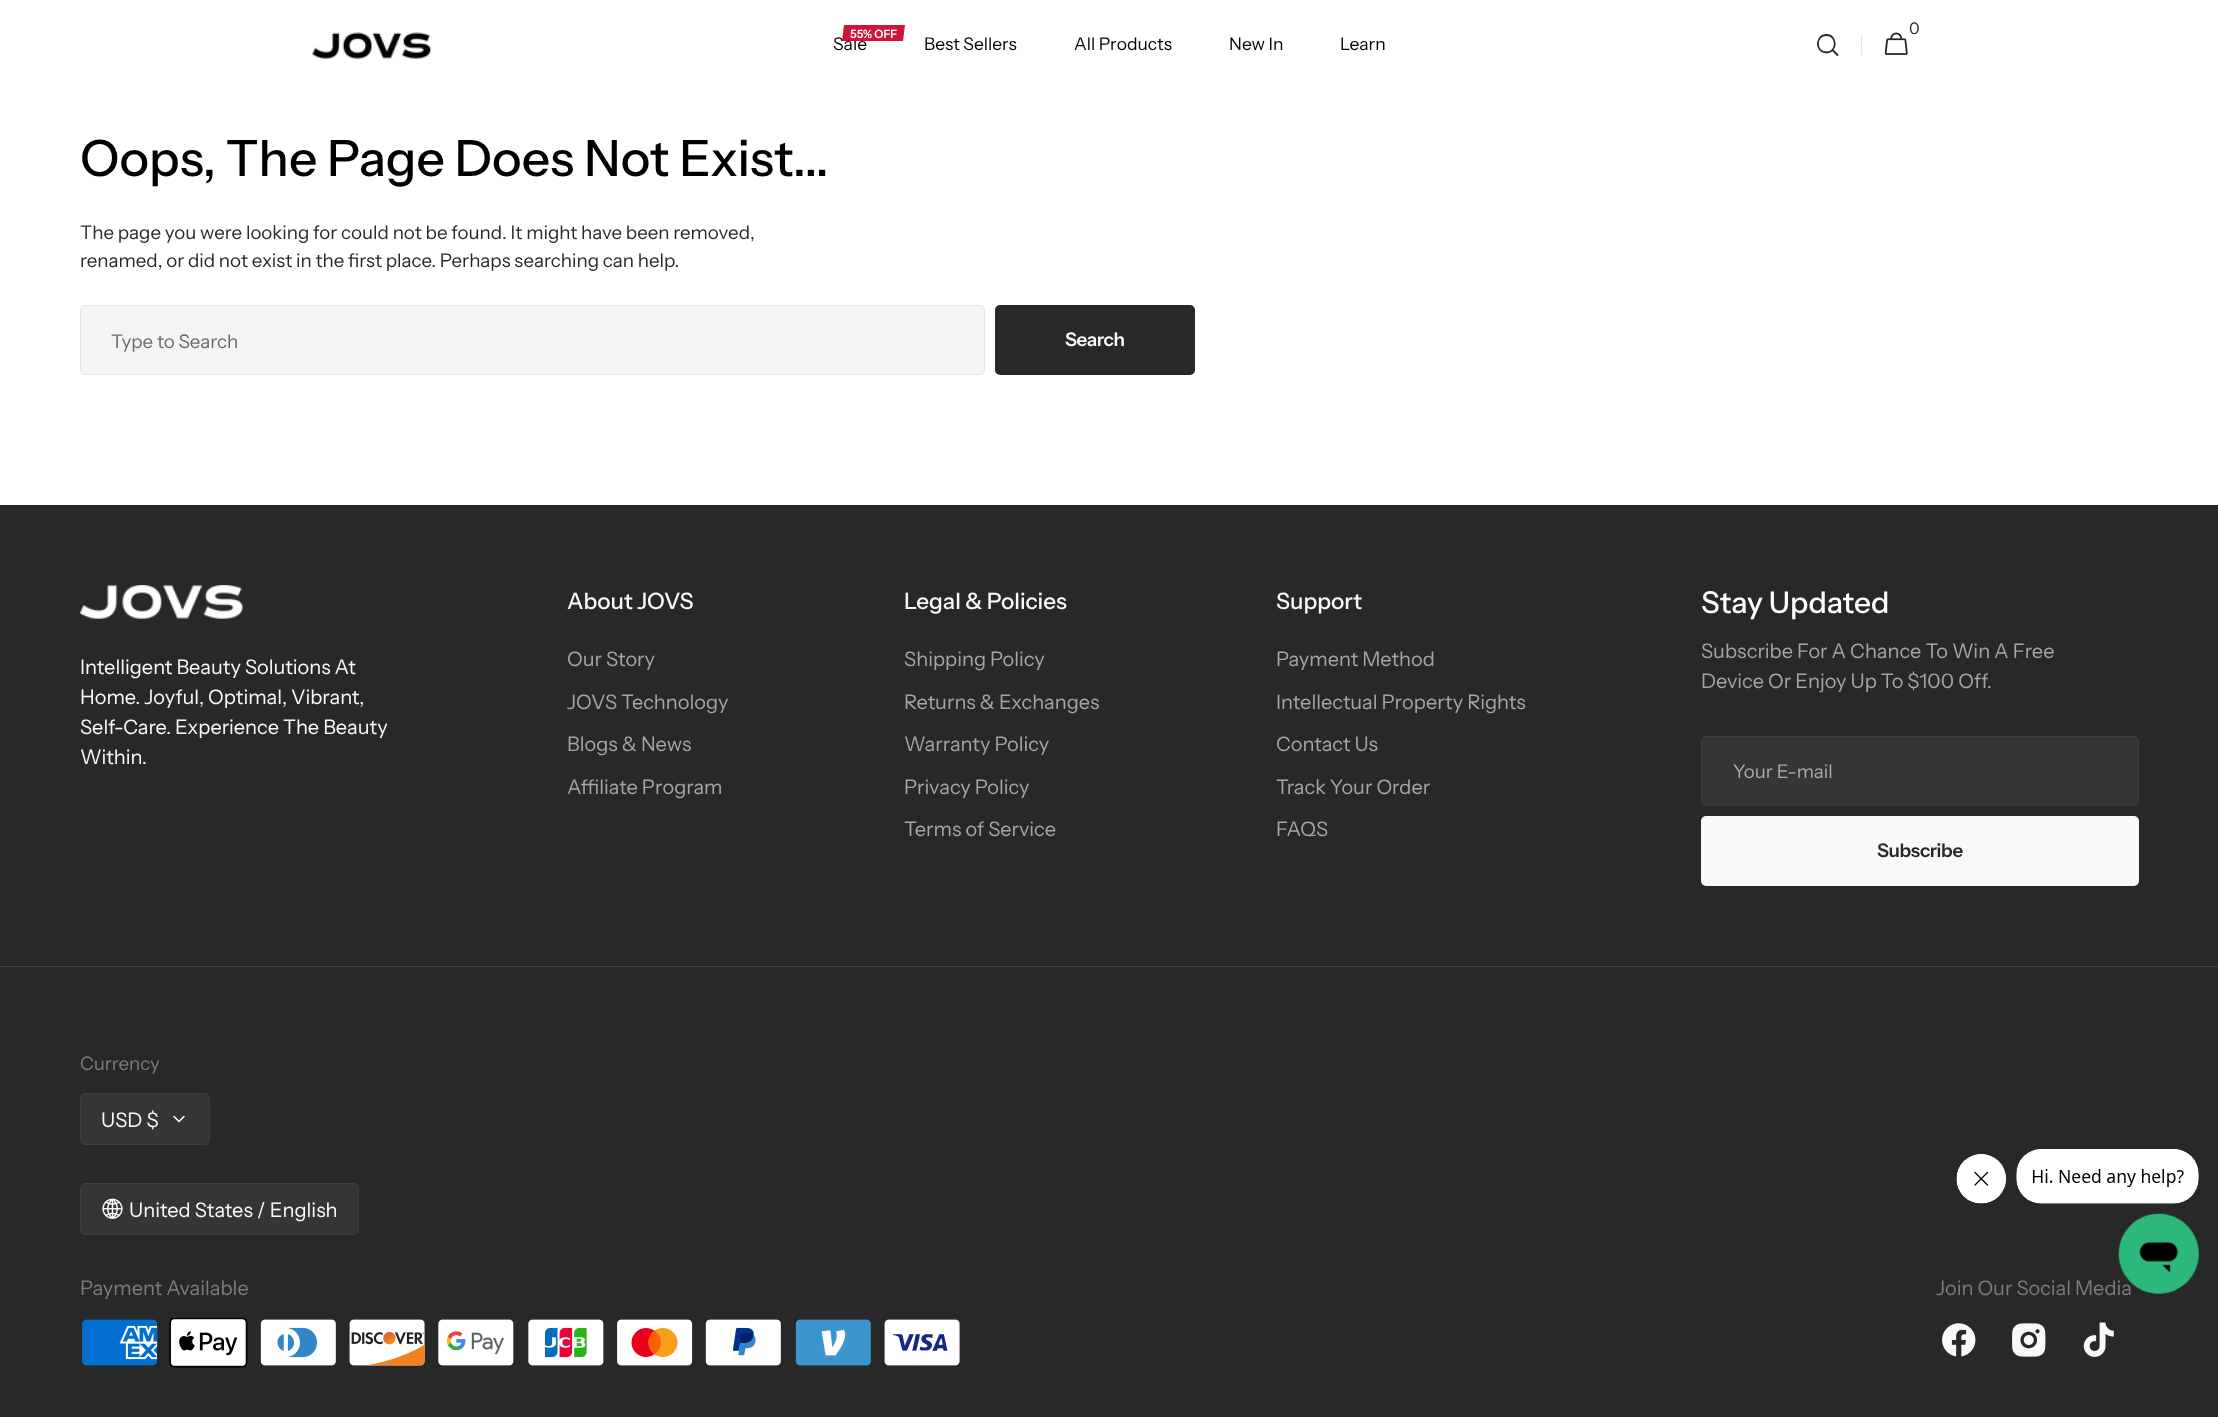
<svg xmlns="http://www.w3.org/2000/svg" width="2218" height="1417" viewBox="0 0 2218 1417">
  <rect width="100%" height="100%" fill="#fff"/>
  <image x="312" y="32" width="120" height="27" href="img/1.png"/>
  <image x="1884" y="32" width="24" height="23" href="img/2.png"/>
  <path d="M1826.5 52.5C1837.5 52.5 1837.5 35 1826.5 35C1815 35 1815 52.5 1826.5 52.5ZM1832.5 50L1837.5 55" fill="none" stroke="#282828" stroke-width="1.8" stroke-linecap="round" stroke-linejoin="round"/>
  <path d="M1861 35h1v20H1861z" fill="#e5e5e5"/>
  <rect x="80.5" y="305.5" width="904" height="69" rx="4.5" fill="#f4f4f4" stroke="#e5e5e5"/>
  <rect x="995" y="305" width="200" height="70" rx="5" fill="#282828"/>
  <path d="M0 505h2218v912H0z" fill="#282828"/>
  <image x="80" y="585" width="163" height="34" href="img/3.png"/>
  <rect x="1701.5" y="736.5" width="437" height="69" rx="4.5" fill="#353535" stroke="#3e3e3e"/>
  <rect x="1701" y="816" width="438" height="70" rx="5" fill="#f9f9f9"/>
  <path d="M0 966h2218v1H0z" fill="#3e3e3e"/>
  <rect x="80.5" y="1093.5" width="129" height="51" rx="4.5" fill="#353535" stroke="#3e3e3e"/>
  <path d="M184 1116.5L179 1121.5L174 1116.5" fill="none" stroke="#f9f9f9" stroke-width="1.6" stroke-linecap="round" stroke-linejoin="round"/>
  <rect x="80.5" y="1183.5" width="278" height="51" rx="4.5" fill="#353535" stroke="#3e3e3e"/>
  <image x="102" y="1198" width="21" height="21" href="img/4.png"/>
  <image x="82" y="1319" width="76" height="47" href="img/5.png"/>
  <image x="169" y="1318" width="79" height="50" href="img/6.png"/>
  <image x="260" y="1319" width="76" height="47" href="img/7.png"/>
  <image x="349" y="1319" width="76" height="47" href="img/8.png"/>
  <image x="438" y="1319" width="76" height="47" href="img/9.png"/>
  <image x="528" y="1319" width="76" height="47" href="img/10.png"/>
  <image x="617" y="1319" width="76" height="47" href="img/11.png"/>
  <image x="705" y="1319" width="76" height="47" href="img/12.png"/>
  <image x="795" y="1319" width="76" height="47" href="img/13.png"/>
  <image x="884" y="1319" width="76" height="47" href="img/14.png"/>
  <image x="1942" y="1323" width="34" height="34" href="img/15.png"/>
  <image x="2012" y="1323" width="34" height="34" href="img/16.png"/>
  <image x="2083" y="1322" width="31" height="35" href="img/17.png"/>
  <image x="1956" y="1154" width="50" height="50" href="img/18.png"/>
  <image x="2016" y="1149" width="183" height="55" href="img/19.png"/>
  <text x="833" y="50" font-family="Instrument Sans" font-size="17.5" fill="#000">Sale</text>
  <path d="M844 25H905L903 41H842Z" fill="#cd153d"/>
  <text x="850" y="38" font-family="Instrument Sans" font-size="11.5" font-weight="600" fill="#fff">55% OFF</text>
  <g font-family="Instrument Sans" font-size="17.5" fill="#000">
    <text x="924" y="50">Best Sellers</text>
    <text x="1074" y="50">All Products</text>
    <text x="1229" y="50">New In</text>
    <text x="1340" y="50">Learn</text>
  </g>
  <text x="1909" y="34" font-family="Instrument Sans" font-size="16" fill="#282828">0</text>
  <text x="80" y="176" font-family="Instrument Sans" font-size="50" font-weight="500" fill="#000">Oops, The Page Does Not Exist...</text>
  <g font-family="Instrument Sans" font-size="18.75" fill="#282828">
    <text x="80" y="239">The page you were looking for could not be found. It might have been removed,</text>
    <text x="80" y="267">renamed, or did not exist in the first place. Perhaps searching can help.</text>
  </g>
  <text x="111" y="348" font-family="Instrument Sans" font-size="18.75" fill="#696969">Type to Search</text>
  <text x="1065" y="346" font-family="Instrument Sans" font-size="18.75" font-weight="600" letter-spacing="-0.4" fill="#f9f9f9">Search</text>
  <g font-family="Instrument Sans" font-size="20" fill="#f9f9f9">
    <text x="80" y="674">Intelligent Beauty Solutions At</text>
    <text x="80" y="704">Home. Joyful, Optimal, Vibrant,</text>
    <text x="80" y="734">Self-Care. Experience The Beauty</text>
    <text x="80" y="764">Within.</text>
  </g>
  <text x="567" y="609" font-family="Instrument Sans" font-size="22.5" font-weight="500" fill="#f9f9f9">About JOVS</text>
  <g font-family="Instrument Sans" font-size="20" fill="#a5a5a5">
    <text x="567" y="666">Our Story</text>
    <text x="567" y="709">JOVS Technology</text>
    <text x="567" y="751">Blogs &amp; News</text>
    <text x="567" y="794">Affiliate Program</text>
  </g>
  <text x="904" y="609" font-family="Instrument Sans" font-size="22.5" font-weight="500" fill="#f9f9f9">Legal &amp; Policies</text>
  <g font-family="Instrument Sans" font-size="20" fill="#a5a5a5">
    <text x="904" y="666">Shipping Policy</text>
    <text x="904" y="709">Returns &amp; Exchanges</text>
    <text x="904" y="751">Warranty Policy</text>
    <text x="904" y="794">Privacy Policy</text>
    <text x="904" y="836">Terms of Service</text>
  </g>
  <text x="1276" y="609" font-family="Instrument Sans" font-size="22.5" font-weight="500" fill="#f9f9f9">Support</text>
  <g font-family="Instrument Sans" font-size="20" fill="#a5a5a5">
    <text x="1276" y="666">Payment Method</text>
    <text x="1276" y="709">Intellectual Property Rights</text>
    <text x="1276" y="751">Contact Us</text>
    <text x="1276" y="794">Track Your Order</text>
    <text x="1276" y="836">FAQS</text>
  </g>
  <text x="1701" y="613" font-family="Instrument Sans" font-size="30" font-weight="500" fill="#fff">Stay Updated</text>
  <g font-family="Instrument Sans" font-size="20" fill="#a5a5a5">
    <text x="1701" y="658">Subscribe For A Chance To Win A Free</text>
    <text x="1701" y="688">Device Or Enjoy Up To $100 Off.</text>
  </g>
  <text x="1733" y="778" font-family="Instrument Sans" font-size="18.75" fill="#ababab">Your E-mail</text>
  <text x="1877" y="857" font-family="Instrument Sans" font-size="18.75" font-weight="600" letter-spacing="-0.4" fill="#282828">Subscribe</text>
  <text x="80" y="1070" font-family="Instrument Sans" font-size="18.75" fill="#7c7c7c">Currency</text>
  <g font-family="Instrument Sans" font-size="20" fill="#f9f9f9">
    <text x="101" y="1127">USD $</text>
    <text x="129" y="1217">United States / English</text>
  </g>
  <g font-family="Instrument Sans" font-size="20" fill="#7c7c7c">
    <text x="80" y="1295">Payment Available</text>
    <text x="1936" y="1295">Join Our Social Media</text>
  </g>
  <image x="2118" y="1213" width="81" height="81" href="img/20.png"/>
</svg>
